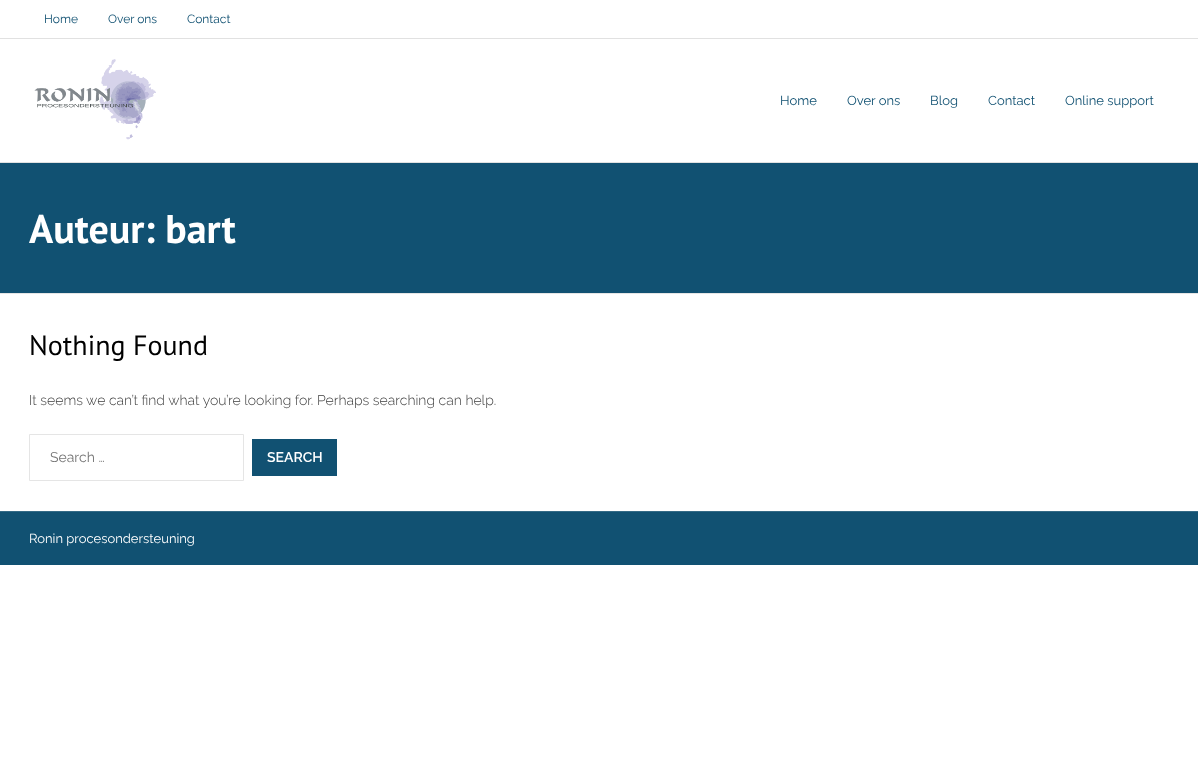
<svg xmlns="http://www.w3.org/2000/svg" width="1198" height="781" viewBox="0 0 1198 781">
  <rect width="100%" height="100%" fill="#fff"/>
  <path d="M0 38h1198v1H0z" fill="#e1e1e1"/>
  <path d="M0 162h1198v1H0z" fill="#e1e1e1"/>
  <image x="34" y="59" width="122" height="81" href="img/1.png"/>
  <path d="M0 163h1198v130H0z" fill="#115172"/>
  <path d="M0 293h1198v1H0z" fill="#e5e5e5"/>
  <path d="M29.5 434.5h214v46H29.5z" fill="none" stroke="#e5e5e5"/>
  <path d="M252 439h85v37H252z" fill="#115172"/>
  <path d="M0 512h1198v53H0z" fill="#115172"/>
  <path d="M0 511h1198v1H0z" fill="#346a86"/>
  <g font-family="Raleway" font-size="12" fill="#115172">
    <text x="44" y="23">Home</text>
    <text x="108" y="23">Over ons</text>
    <text x="187" y="23">Contact</text>
  </g>
  <g font-family="Raleway" font-size="13" fill="#115172">
    <text x="780" y="105">Home</text>
    <text x="847" y="105">Over ons</text>
    <text x="930" y="105">Blog</text>
    <text x="988" y="105">Contact</text>
    <text x="1065" y="105">Online support</text>
  </g>
  <text x="29" y="243" font-family="PT Sans" font-size="40" font-weight="bold" fill="#fff">Auteur: bart</text>
  <text x="29" y="355" font-family="PT Sans" font-size="28" fill="#000">Nothing Found</text>
  <text x="29" y="405" font-family="Raleway" font-size="14" font-weight="300" fill="#3d3d3d">It seems we can’t find what you’re looking for. Perhaps searching can help.</text>
  <text x="50" y="462" font-family="Raleway" font-size="14" fill="#757575">Search …</text>
  <text x="267" y="462" font-family="Raleway" font-size="14" font-weight="600" fill="#fff">SEARCH</text>
  <text x="29" y="543" font-family="Raleway" font-size="13" fill="#fff">Ronin procesondersteuning</text>
</svg>
